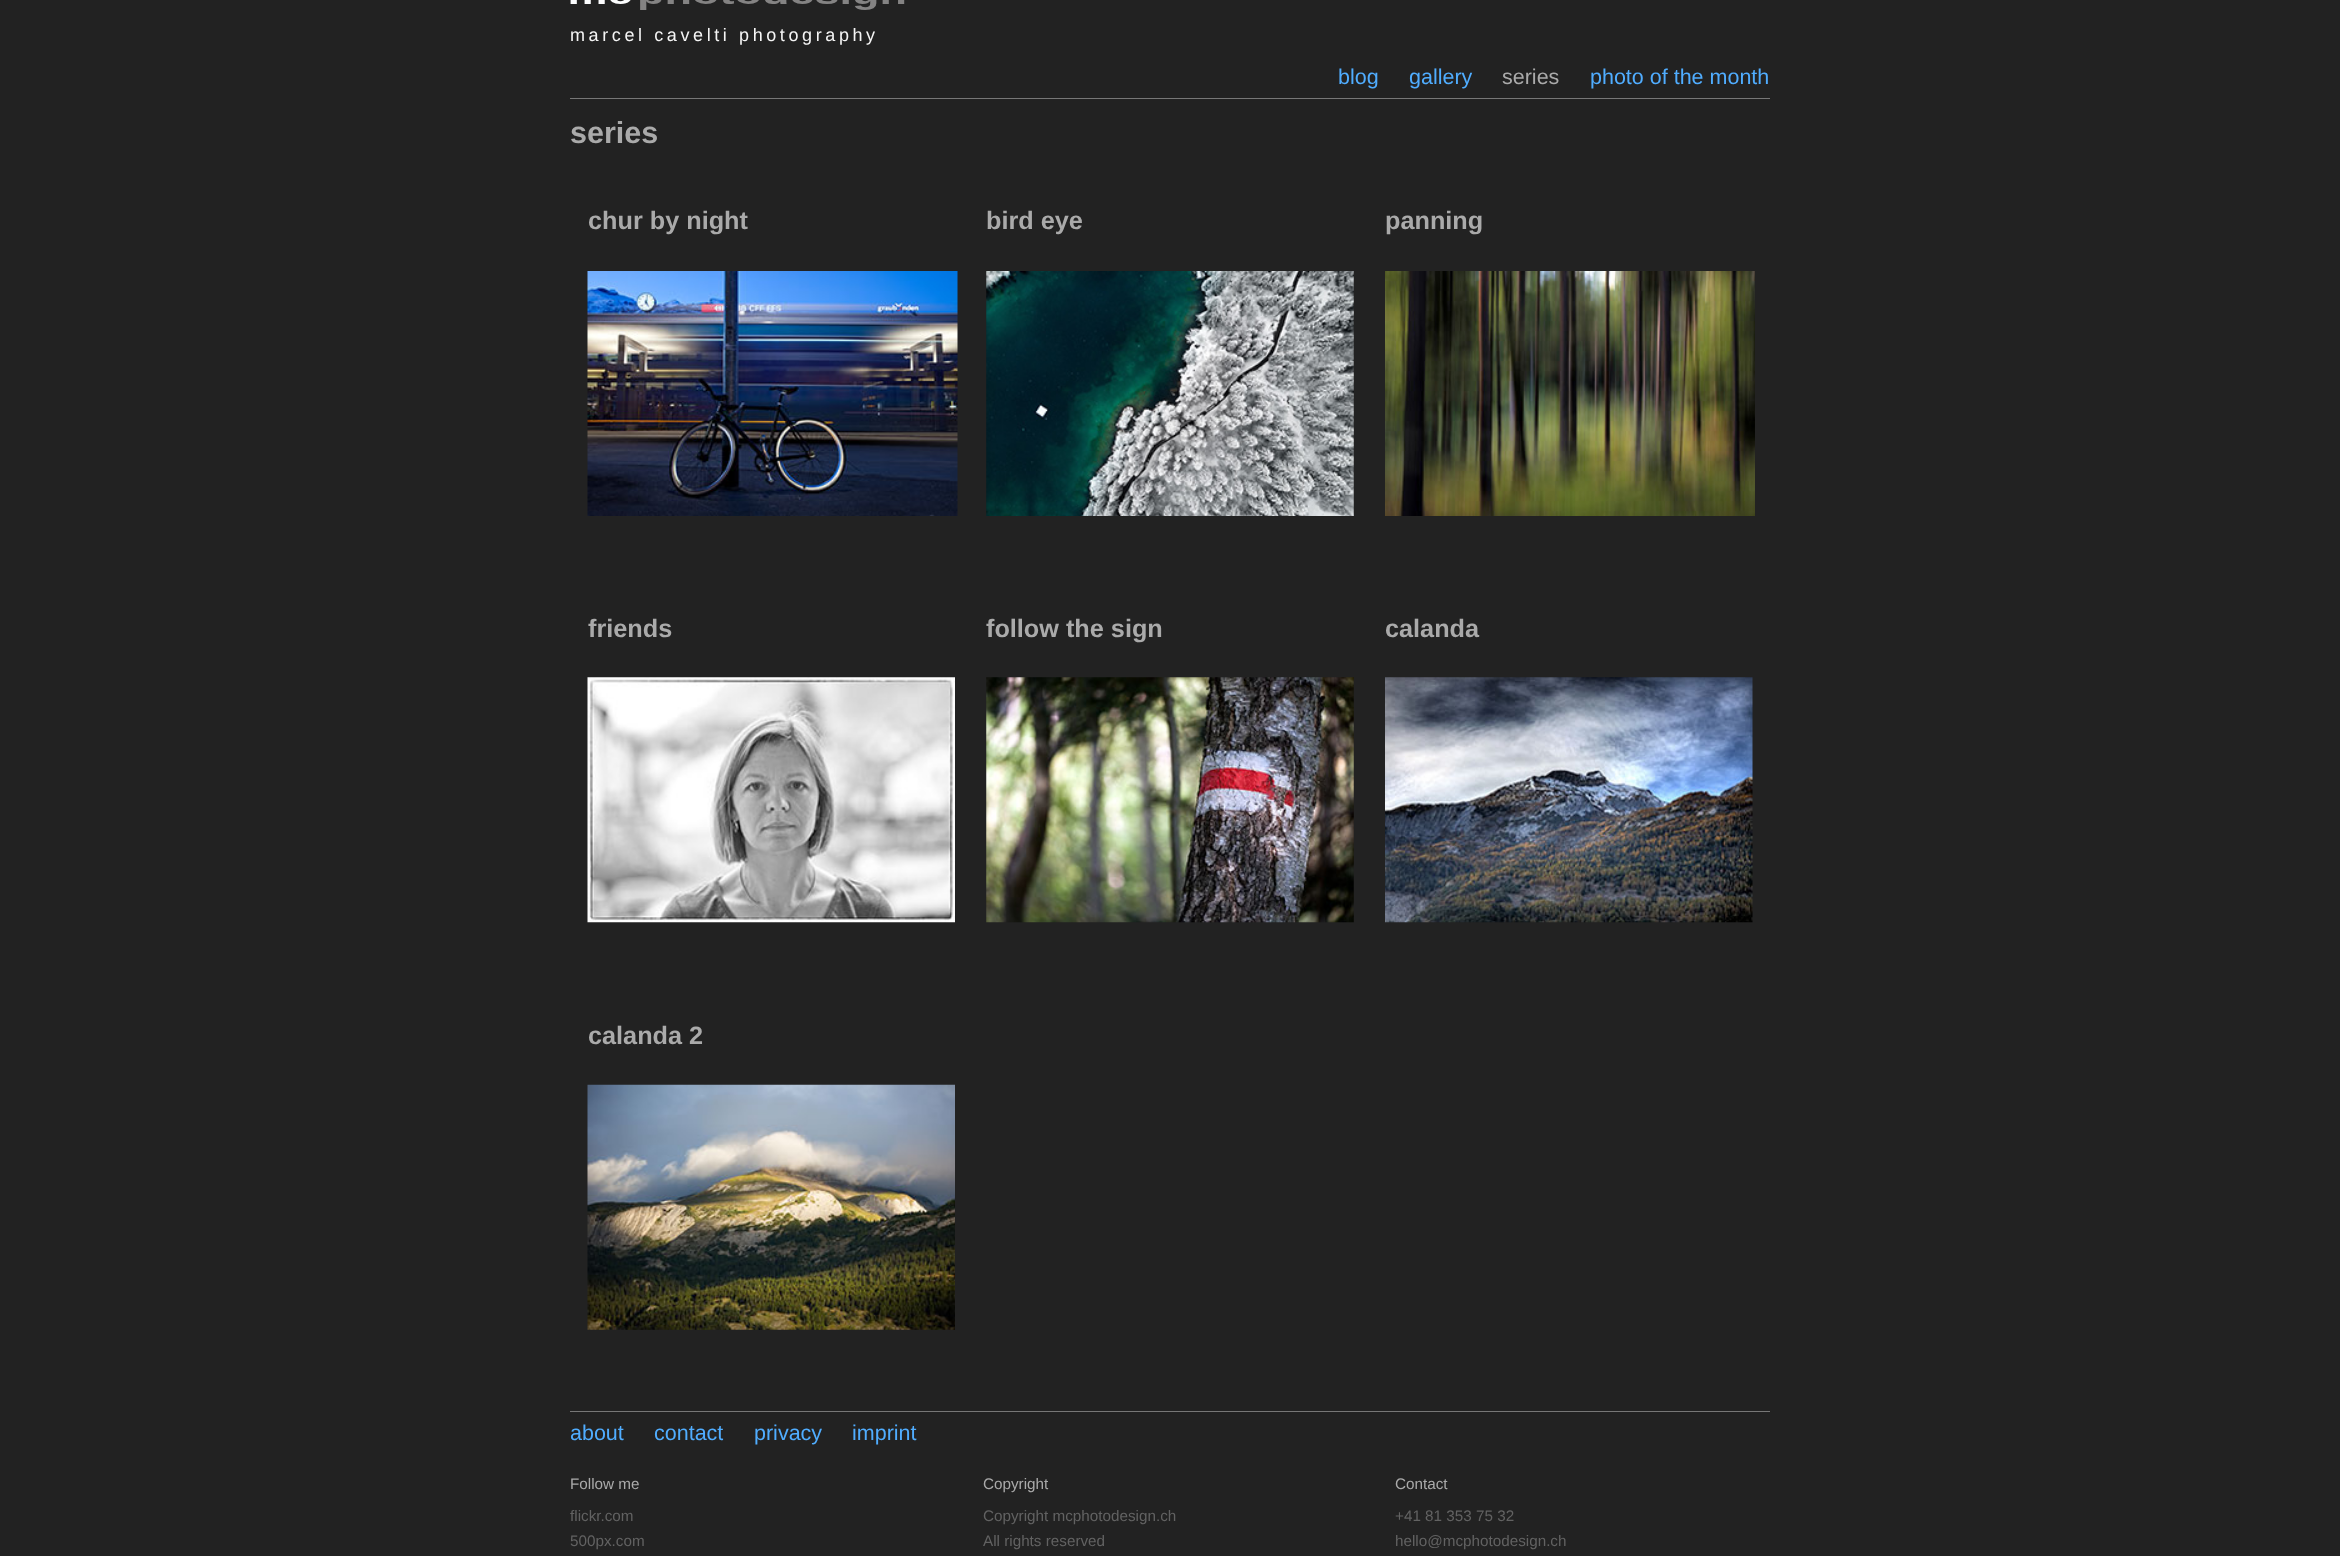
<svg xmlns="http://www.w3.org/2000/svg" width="2340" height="1556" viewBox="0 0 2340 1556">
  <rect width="100%" height="100%" fill="#222"/>
  <image x="570" y="0" width="335" height="10" href="img/1.png"/>
  <path d="M570 98h1200v1H570z" fill="#777"/>
  <image x="587" y="271" width="371" height="245" href="img/2.png"/>
  <image x="986" y="271" width="368" height="245" href="img/3.png"/>
  <image x="1385" y="271" width="370" height="245" href="img/4.png"/>
  <image x="587" y="677" width="368" height="246" href="img/5.png"/>
  <image x="986" y="677" width="368" height="246" href="img/6.png"/>
  <image x="1385" y="677" width="368" height="246" href="img/7.png"/>
  <image x="587" y="1084" width="368" height="246" href="img/8.png"/>
  <path d="M570 1411h1200v1H570z" fill="#777"/>
  <text x="570" y="41" font-family="Liberation Sans" font-size="18" letter-spacing="3.6" fill="#f5f5f5">marcel cavelti photography</text>
  <g font-family="Liberation Sans" font-size="21.5" fill="#50adff">
    <text x="1338" y="84">blog</text>
    <text x="1409" y="84">gallery</text>
  </g>
  <text x="1502" y="84" font-family="Liberation Sans" font-size="21.5" fill="#aaa">series</text>
  <text x="1590" y="84" font-family="Liberation Sans" font-size="21.5" fill="#50adff">photo of the month</text>
  <text x="570" y="143" font-family="Liberation Sans" font-size="30.5" font-weight="bold" fill="#aaa">series</text>
  <g font-family="Liberation Sans" font-size="25.25" font-weight="bold" fill="#aaa">
    <text x="588" y="229">chur by night</text>
    <text x="986" y="229">bird eye</text>
    <text x="1385" y="229">panning</text>
    <text x="588" y="637">friends</text>
    <text x="986" y="637">follow the sign</text>
    <text x="1385" y="637">calanda</text>
    <text x="588" y="1044">calanda 2</text>
  </g>
  <g font-family="Liberation Sans" font-size="21.5" fill="#50adff">
    <text x="570" y="1440">about</text>
    <text x="654" y="1440">contact</text>
    <text x="754" y="1440">privacy</text>
    <text x="852" y="1440">imprint</text>
  </g>
  <text x="570" y="1489" font-family="Liberation Sans" font-size="15.25" fill="#aaa">Follow me</text>
  <g font-family="Liberation Sans" font-size="15.25" fill="#626262">
    <text x="570" y="1521">flickr.com</text>
    <text x="570" y="1546">500px.com</text>
  </g>
  <text x="983" y="1489" font-family="Liberation Sans" font-size="15.25" fill="#aaa">Copyright</text>
  <g font-family="Liberation Sans" font-size="15.25" fill="#626262">
    <text x="983" y="1521">Copyright mcphotodesign.ch</text>
    <text x="983" y="1546">All rights reserved</text>
  </g>
  <text x="1395" y="1489" font-family="Liberation Sans" font-size="15.25" fill="#aaa">Contact</text>
  <g font-family="Liberation Sans" font-size="15.25" fill="#626262">
    <text x="1395" y="1521">+41 81 353 75 32</text>
    <text x="1395" y="1546">hello@mcphotodesign.ch</text>
  </g>
</svg>
